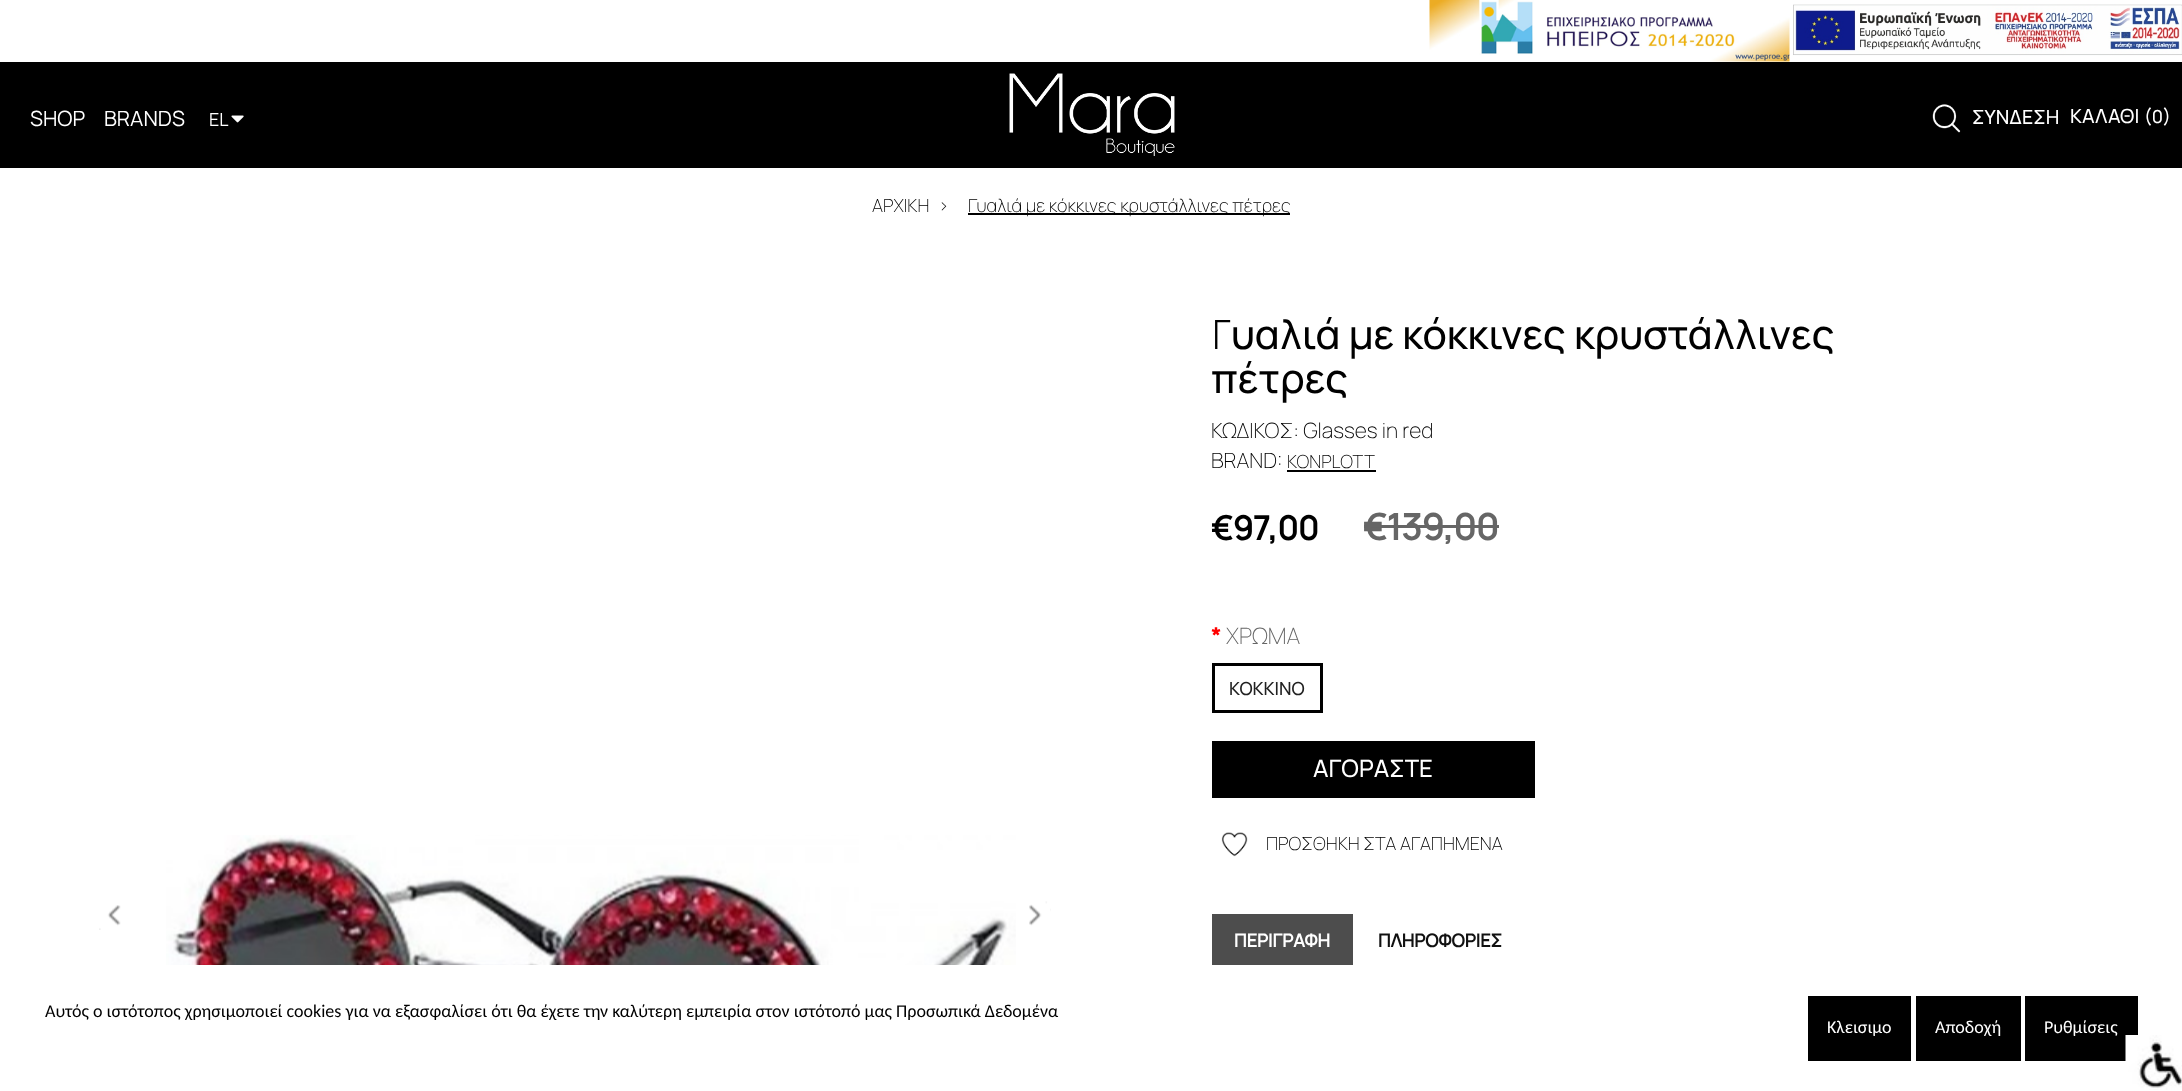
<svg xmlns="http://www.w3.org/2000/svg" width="2182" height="1091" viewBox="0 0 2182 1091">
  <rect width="100%" height="100%" fill="#fff"/>
  <image x="1429" y="0" width="361" height="62" href="img/1.png"/>
  <image x="1793" y="4" width="389" height="52" href="img/2.png"/>
  <path d="M0 62h2182v106H0z" fill="#000"/>
  <image x="231" y="115" width="13" height="8" href="img/3.png"/>
  <image x="1009" y="73" width="166" height="83" href="img/4.png"/>
  <image x="1932" y="104" width="29" height="29" href="img/5.png"/>
  <path d="M968 213h322v2H968z" fill="#000"/>
  <image x="166" y="835" width="850" height="130" href="img/6.png"/>
  <image x="99" y="905" width="22" height="25" href="img/7.png"/>
  <image x="1029" y="901" width="22" height="25" href="img/8.png"/>
  <path d="M1287 470h89v2H1287z" fill="#000"/>
  <path d="M1364 525h135v3H1364z" fill="#666"/>
  <path d="M1213.5 664.5h108v47H1213.5z" fill="none" stroke="#000" stroke-width="3"/>
  <path d="M1212 741h323v57H1212z" fill="#000"/>
  <image x="1221" y="832" width="27" height="25" href="img/9.png"/>
  <path d="M1212 914h141v51H1212z" fill="#4d4d4d"/>
  <path d="M1808 996h103v65H1808z" fill="#000"/>
  <path d="M1916 996h105v65H1916z" fill="#000"/>
  <path d="M2025 996h113v65H2025z" fill="#000"/>
  <image x="2125" y="1035" width="57" height="55" href="img/10.png"/>
  <g font-family="Manrope" font-size="21" fill="#fff">
    <text x="30" y="126">SHOP</text>
    <text x="104" y="126">BRANDS</text>
  </g>
  <text x="209" y="126" font-family="Manrope" font-size="18" fill="#fff">EL</text>
  <g font-family="Manrope" font-size="19.5" font-weight="500" fill="#fff">
    <text x="1972" y="124">ΣΥΝΔΕΣΗ</text>
    <text x="2070" y="123">ΚΑΛΑΘΙ</text>
  </g>
  <text x="2144" y="123" font-family="Manrope" font-size="18" font-weight="500" fill="#fff">(0)</text>
  <g font-family="Manrope" font-size="18" font-weight="200" fill="#000">
    <text x="872" y="212">ΑΡΧΙΚΗ</text>
    <text x="938" y="212">&gt;</text>
    <text x="968" y="212">Γυαλιά με κόκκινες κρυστάλλινες πέτρες</text>
  </g>
  <text x="1211" y="349" font-family="Noto Sans" font-size="40.5" font-weight="300" fill="#000">Γ</text>
  <g font-family="Manrope" font-size="40.5" font-weight="500" fill="#000">
    <text x="1231" y="349">υαλιά με κόκκινες κρυστάλλινες</text>
    <text x="1211" y="393">πέτρες</text>
  </g>
  <g font-family="Manrope" font-size="21" font-weight="200" fill="#000">
    <text x="1211" y="438">ΚΩΔΙΚΟΣ: Glasses in red</text>
    <text x="1211" y="468">BRAND:</text>
  </g>
  <text x="1287" y="468" font-family="Manrope" font-size="18" font-weight="200" fill="#000">KONPLOTT</text>
  <text x="1211" y="540" font-family="Manrope" font-size="33" font-weight="bold" fill="#000">€97,00</text>
  <text x="1363" y="540" font-family="Manrope" font-size="36" font-weight="bold" fill="#666">€139,00</text>
  <text x="1211" y="644" font-family="Manrope" font-size="22.5" font-weight="bold" fill="#f00">*</text>
  <text x="1226" y="644" font-family="Manrope" font-size="22.5" font-weight="200" fill="#666">XPΩMA</text>
  <text x="1229" y="695" font-family="Manrope" font-size="18" font-weight="500" fill="#222">ΚΟΚΚΙΝΟ</text>
  <text x="1313" y="777" font-family="Manrope" font-size="24" font-weight="500" fill="#fff">ΑΓΟΡΑΣΤΕ</text>
  <text x="1266" y="850" font-family="Manrope" font-size="18" font-weight="200" fill="#000">ΠΡΟΣΘΗΚΗ ΣΤΑ ΑΓΑΠΗΜΕΝΑ</text>
  <text x="1234" y="947" font-family="Manrope" font-size="18" font-weight="bold" fill="#fff">ΠΕΡΙΓΡΑΦΗ</text>
  <text x="1378" y="947" font-family="Manrope" font-size="18" font-weight="bold" fill="#111">ΠΛΗΡΟΦΟΡΙΕΣ</text>
  <text x="45" y="1017" font-family="Carlito" font-size="18" fill="#000">Αυτός ο ιστότοπος χρησιμοποιεί cookies για να εξασφαλίσει ότι θα έχετε την καλύτερη εμπειρία στον ιστότοπό μας Προσωπικά Δεδομένα</text>
  <g font-family="Carlito" font-size="18" fill="#fff">
    <text x="1827" y="1033">Κλεισιμο</text>
    <text x="1935" y="1033">Αποδοχή</text>
    <text x="2044" y="1033">Ρυθμίσεις</text>
  </g>
</svg>
